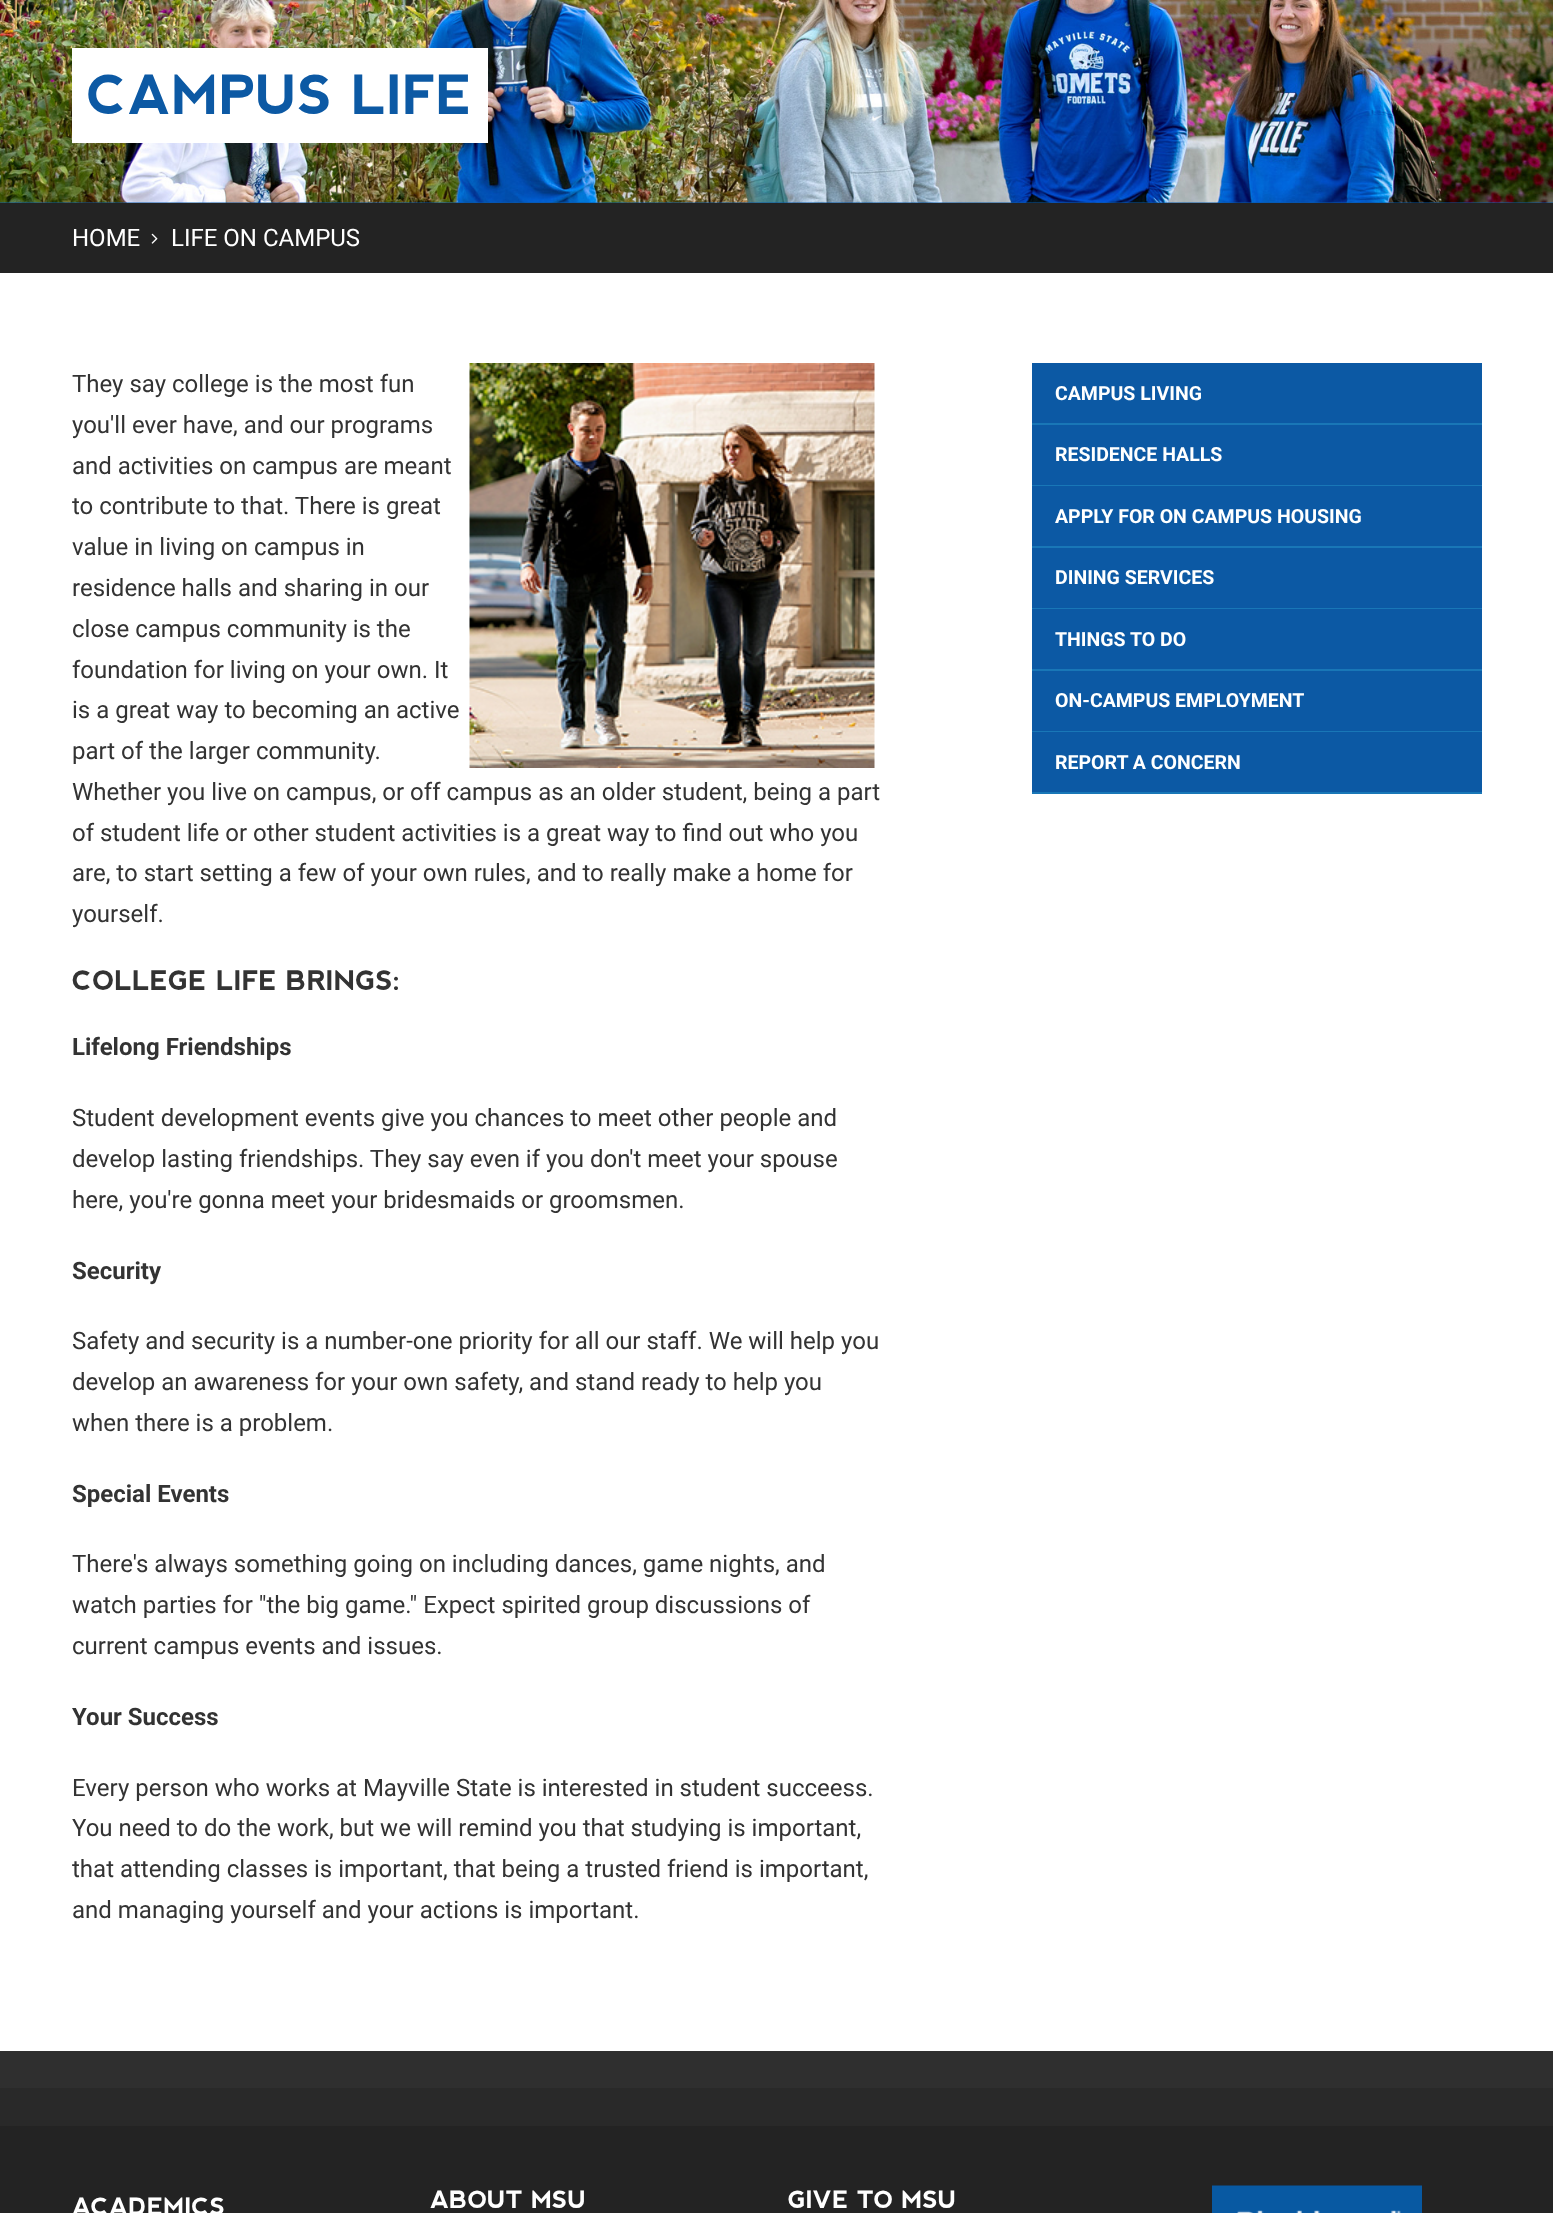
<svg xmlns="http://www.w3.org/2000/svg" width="1553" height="2213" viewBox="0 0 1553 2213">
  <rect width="100%" height="100%" fill="#fff"/>
  <path d="M0 202h1553v1H0z" fill="#0c59a4"/>
  <image x="0" y="0" width="1553" height="203" href="img/1.png"/>
  <path d="M72 48h416v95H72z" fill="#fff"/>
  <path d="M0 203h1553v70H0z" fill="#232323"/>
  <image x="151" y="233" width="7" height="11" href="img/2.png"/>
  <image x="469" y="363" width="406" height="405" href="img/3.png"/>
  <path d="M1032 363h450v60H1032z" fill="#0c59a4"/>
  <path d="M1032 423h450v2H1032z" fill="#1977b7"/>
  <path d="M1032 425h450v60H1032z" fill="#0c59a4"/>
  <path d="M1032 485h450v1H1032z" fill="#1977b7"/>
  <path d="M1032 486h450v60H1032z" fill="#0c59a4"/>
  <path d="M1032 546h450v2H1032z" fill="#1977b7"/>
  <path d="M1032 548h450v60H1032z" fill="#0c59a4"/>
  <path d="M1032 608h450v1H1032z" fill="#1977b7"/>
  <path d="M1032 609h450v60H1032z" fill="#0c59a4"/>
  <path d="M1032 669h450v2H1032z" fill="#1977b7"/>
  <path d="M1032 671h450v60H1032z" fill="#0c59a4"/>
  <path d="M1032 731h450v1H1032z" fill="#1977b7"/>
  <path d="M1032 732h450v60H1032z" fill="#0c59a4"/>
  <path d="M1032 792h450v2H1032z" fill="#1977b7"/>
  <path d="M0 2051h1553v37H0z" fill="#2f2f2f"/>
  <path d="M0 2088h1553v38H0z" fill="#292929"/>
  <path d="M0 2126h1553v87H0z" fill="#232323"/>
  <image x="1212" y="2185" width="210" height="28" href="img/4.png"/>
  <text x="87" y="114" font-family="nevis" font-size="54" font-weight="bold" fill="#0c59a4">CAMPUS LIFE</text>
  <g font-family="Roboto" font-size="24" fill="#fff">
    <text x="72" y="246">HOME</text>
    <text x="171" y="246">LIFE ON CAMPUS</text>
  </g>
  <g font-family="Roboto" font-size="24" fill="#333">
    <text x="72" y="392">They say college is the most fun</text>
    <text x="72" y="433">you'll ever have, and our programs</text>
    <text x="72" y="474">and activities on campus are meant</text>
    <text x="72" y="514">to contribute to that. There is great</text>
    <text x="72" y="555">value in living on campus in</text>
    <text x="72" y="596">residence halls and sharing in our</text>
    <text x="72" y="637">close campus community is the</text>
    <text x="72" y="678">foundation for living on your own. It</text>
    <text x="72" y="718">is a great way to becoming an active</text>
    <text x="72" y="759">part of the larger community.</text>
    <text x="72" y="800">Whether you live on campus, or off campus as an older student, being a part</text>
    <text x="72" y="841">of student life or other student activities is a great way to find out who you</text>
    <text x="72" y="881">are, to start setting a few of your own rules, and to really make a home for</text>
    <text x="72" y="922">yourself.</text>
  </g>
  <text x="72" y="990" font-family="nevis" font-size="27" font-weight="bold" fill="#333">COLLEGE LIFE BRINGS:</text>
  <text x="72" y="1055" font-family="Roboto" font-size="24" font-weight="bold" fill="#333">Lifelong Friendships</text>
  <g font-family="Roboto" font-size="24" fill="#333">
    <text x="72" y="1126">Student development events give you chances to meet other people and</text>
    <text x="72" y="1167">develop lasting friendships. They say even if you don't meet your spouse</text>
    <text x="72" y="1208">here, you're gonna meet your bridesmaids or groomsmen.</text>
  </g>
  <text x="72" y="1279" font-family="Roboto" font-size="24" font-weight="bold" fill="#333">Security</text>
  <g font-family="Roboto" font-size="24" fill="#333">
    <text x="72" y="1349">Safety and security is a number-one priority for all our staff. We will help you</text>
    <text x="72" y="1390">develop an awareness for your own safety, and stand ready to help you</text>
    <text x="72" y="1431">when there is a problem.</text>
  </g>
  <text x="72" y="1502" font-family="Roboto" font-size="24" font-weight="bold" fill="#333">Special Events</text>
  <g font-family="Roboto" font-size="24" fill="#333">
    <text x="72" y="1572">There's always something going on including dances, game nights, and</text>
    <text x="72" y="1613">watch parties for "the big game." Expect spirited group discussions of</text>
    <text x="72" y="1654">current campus events and issues.</text>
  </g>
  <text x="72" y="1725" font-family="Roboto" font-size="24" font-weight="bold" fill="#333">Your Success</text>
  <g font-family="Roboto" font-size="24" fill="#333">
    <text x="72" y="1796">Every person who works at Mayville State is interested in student succeess.</text>
    <text x="72" y="1836">You need to do the work, but we will remind you that studying is important,</text>
    <text x="72" y="1877">that attending classes is important, that being a trusted friend is important,</text>
    <text x="72" y="1918">and managing yourself and your actions is important.</text>
  </g>
  <g font-family="Roboto" font-size="19.5" font-weight="bold" fill="#fff">
    <text x="1055" y="400">CAMPUS LIVING</text>
    <text x="1055" y="461">RESIDENCE HALLS</text>
    <text x="1055" y="523">APPLY FOR ON CAMPUS HOUSING</text>
    <text x="1055" y="584">DINING SERVICES</text>
    <text x="1055" y="646">THINGS TO DO</text>
    <text x="1055" y="707">ON-CAMPUS EMPLOYMENT</text>
    <text x="1055" y="769">REPORT A CONCERN</text>
  </g>
  <g font-family="nevis" font-size="24" font-weight="bold" fill="#fff">
    <text x="72" y="2215">ACADEMICS</text>
    <text x="430" y="2208">ABOUT MSU</text>
    <text x="788" y="2208">GIVE TO MSU</text>
  </g>
</svg>
